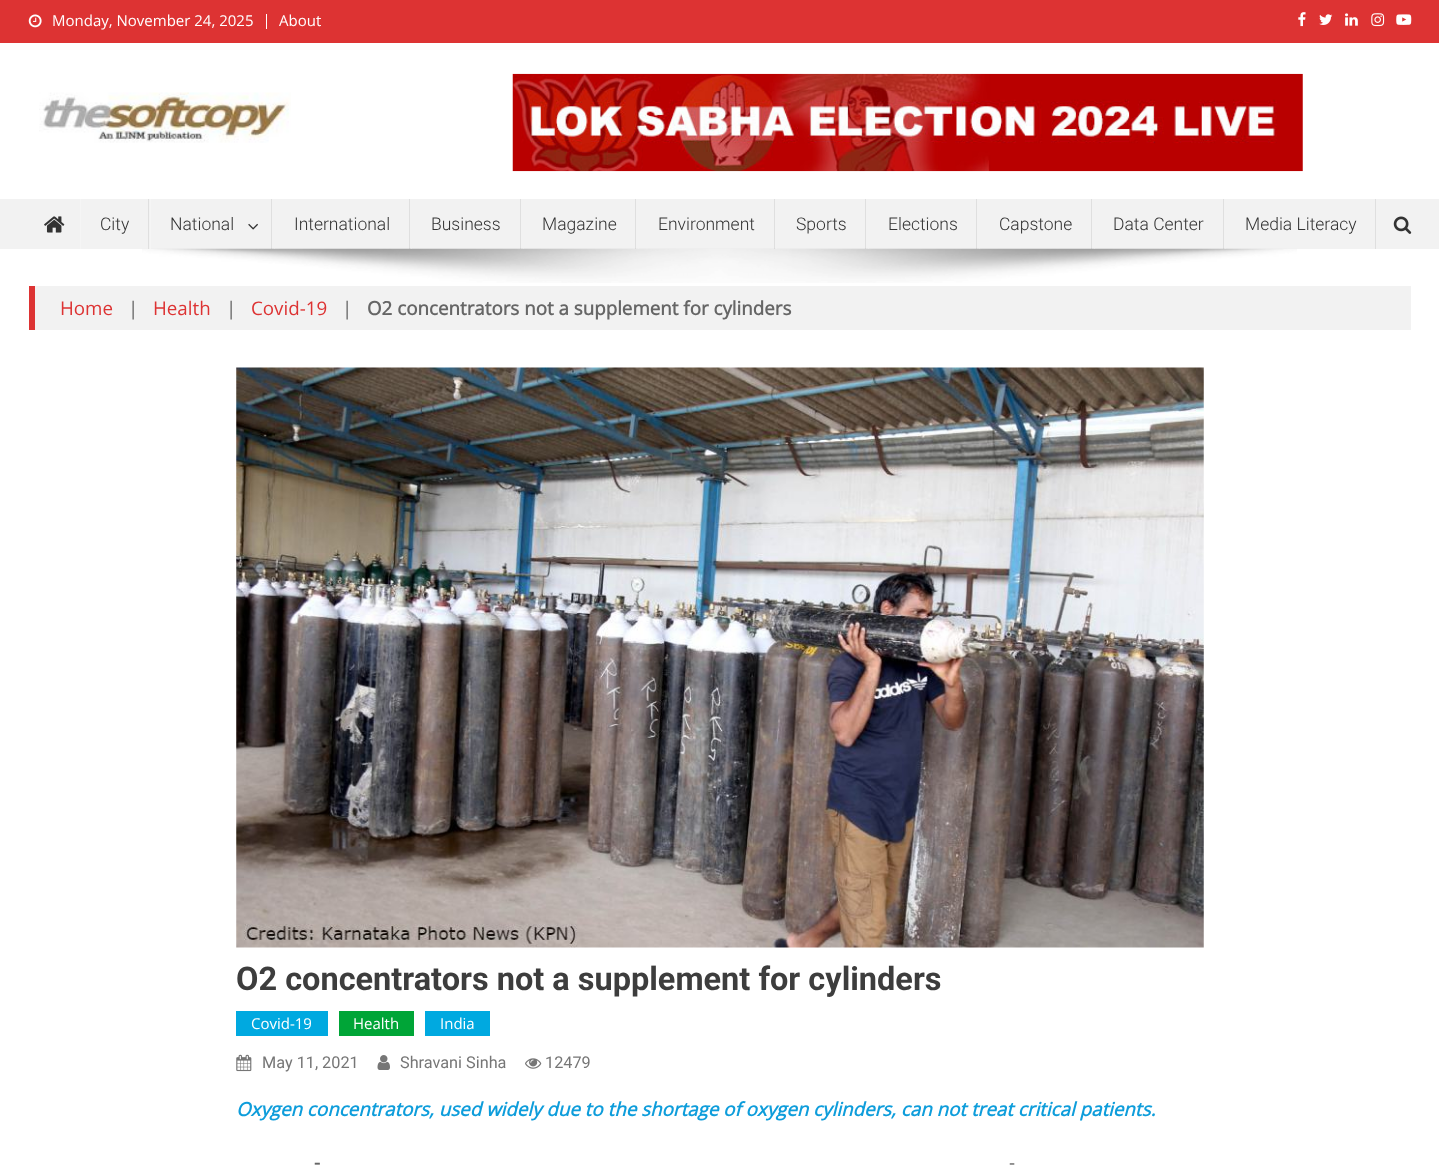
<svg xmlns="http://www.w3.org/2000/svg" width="1439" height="1165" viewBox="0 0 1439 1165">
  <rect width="100%" height="100%" fill="#fff"/>
  <path d="M0 0h1439v43H0z" fill="#d33"/>
  <image x="28" y="14" width="14" height="14" href="img/1.png"/>
  <path d="M266 14h1v15H266z" fill="#fff"/>
  <image x="1298" y="12" width="8" height="15" href="img/2.png"/>
  <image x="1319" y="14" width="14" height="11" href="img/3.png"/>
  <image x="1345" y="13" width="13" height="13" href="img/4.png"/>
  <image x="1371" y="13" width="14" height="14" href="img/5.png"/>
  <image x="1396" y="14" width="16" height="11" href="img/6.png"/>
  <image x="39" y="92" width="252" height="51" href="img/7.png"/>
  <image x="512" y="73" width="791" height="99" href="img/8.png"/>
  <path d="M0 199h1439v50H0z" fill="#f2f2f2"/>
  <image x="44" y="216" width="21" height="17" href="img/9.png"/>
  <image x="142" y="248" width="1155" height="35" href="img/12.png"/>
  <path d="M148 199h1v50H148z" fill="#dfdfdf"/>
  <path d="M80 199h1v50H80z" fill="#f5f5f5"/>
  <path d="M271 199h1v50H271z" fill="#00000014"/>
  <path d="M150 199h1v50H150z" fill="#f5f5f5"/>
  <image x="248" y="223" width="10" height="7" href="img/10.png"/>
  <path d="M409 199h1v50H409z" fill="#00000014"/>
  <path d="M274 248h1v1H274z" fill="#ffffff33"/>
  <path d="M520 199h1v50H520z" fill="#00000014"/>
  <path d="M411 248h1v1H411z" fill="#ffffff33"/>
  <path d="M635 199h1v50H635z" fill="#00000014"/>
  <path d="M523 248h1v1H523z" fill="#ffffff33"/>
  <path d="M774 199h1v50H774z" fill="#00000014"/>
  <path d="M638 248h1v1H638z" fill="#ffffff33"/>
  <path d="M865 199h1v50H865z" fill="#00000014"/>
  <path d="M776 248h1v1H776z" fill="#ffffff33"/>
  <path d="M976 199h1v50H976z" fill="#00000014"/>
  <path d="M868 248h1v1H868z" fill="#ffffff33"/>
  <path d="M1091 199h1v50H1091z" fill="#00000014"/>
  <path d="M979 248h1v1H979z" fill="#ffffff33"/>
  <path d="M1223 199h1v50H1223z" fill="#00000014"/>
  <path d="M1094 248h1v1H1094z" fill="#ffffff33"/>
  <path d="M1375 199h1v50H1375z" fill="#dfdfdf"/>
  <path d="M1225 248h1v1H1225z" fill="#ffffff33"/>
  <image x="1393" y="216" width="19" height="18" href="img/11.png"/>
  <path d="M35 286h1376v44H35z" fill="#f2f2f2"/>
  <path d="M29 286h6v44H29z" fill="#d33"/>
  <image x="236" y="367" width="968" height="581" href="img/13.png"/>
  <path d="M236 1011h92v25H236z" fill="#00a9e0"/>
  <path d="M339 1011h75v25H339z" fill="#00a537"/>
  <path d="M425 1011h65v25H425z" fill="#00a9e0"/>
  <image x="236" y="1054" width="16" height="18" href="img/14.png"/>
  <image x="377" y="1055" width="13" height="15" href="img/15.png"/>
  <image x="525" y="1058" width="17" height="11" href="img/16.png"/>
  <g font-family="Open Sans" font-size="15" fill="#fff">
    <text x="52" y="26">Monday, November 24, 2025</text>
    <text x="279" y="26">About</text>
  </g>
  <g font-family="Roboto" font-size="17.5" font-weight="300" fill="#333">
    <text x="100" y="230">City</text>
    <text x="170" y="230">National</text>
    <text x="294" y="230">International</text>
    <text x="431" y="230">Business</text>
    <text x="542" y="230">Magazine</text>
    <text x="658" y="230">Environment</text>
    <text x="796" y="230">Sports</text>
    <text x="888" y="230">Elections</text>
    <text x="999" y="230">Capstone</text>
    <text x="1113" y="230">Data Center</text>
    <text x="1245" y="230">Media Literacy</text>
  </g>
  <text x="60" y="315" font-family="Open Sans" font-size="18.75" fill="#d33">Home</text>
  <text x="128" y="315" font-family="Open Sans" font-size="18.75" fill="#666">|</text>
  <text x="153" y="315" font-family="Open Sans" font-size="18.75" fill="#d33">Health</text>
  <text x="226" y="315" font-family="Open Sans" font-size="18.75" fill="#666">|</text>
  <text x="251" y="315" font-family="Open Sans" font-size="18.75" fill="#d33">Covid-19</text>
  <text x="342" y="315" font-family="Open Sans" font-size="18.75" fill="#666">|</text>
  <text x="367" y="315" font-family="Open Sans" font-size="18.75" font-weight="bold" fill="#666">O2 concentrators not a supplement for cylinders</text>
  <text x="236" y="990" font-family="Roboto" font-size="32.5" font-weight="bold" fill="#3d3d3d">O2 concentrators not a supplement for cylinders</text>
  <g font-family="Open Sans" font-size="15" fill="#fff">
    <text x="251" y="1029">Covid-19</text>
    <text x="353" y="1029">Health</text>
    <text x="440" y="1029">India</text>
  </g>
  <g font-family="Roboto" font-size="16.25" fill="#767676">
    <text x="262" y="1068">May 11, 2021</text>
    <text x="400" y="1068">Shravani Sinha</text>
    <text x="545" y="1068">12479</text>
  </g>
  <text x="236" y="1116" font-family="Open Sans" font-size="18.75" font-weight="bold" font-style="italic" fill="#0e9ddb">Oxygen concentrators, used widely due to the shortage of oxygen cylinders, can not treat critical patients.</text>
  <text x="314" y="1169" font-family="Open Sans" font-size="18.75" font-weight="bold" fill="#666">-</text>
  <text x="1009" y="1169" font-family="Open Sans" font-size="18.75" fill="#666">-</text>
</svg>
